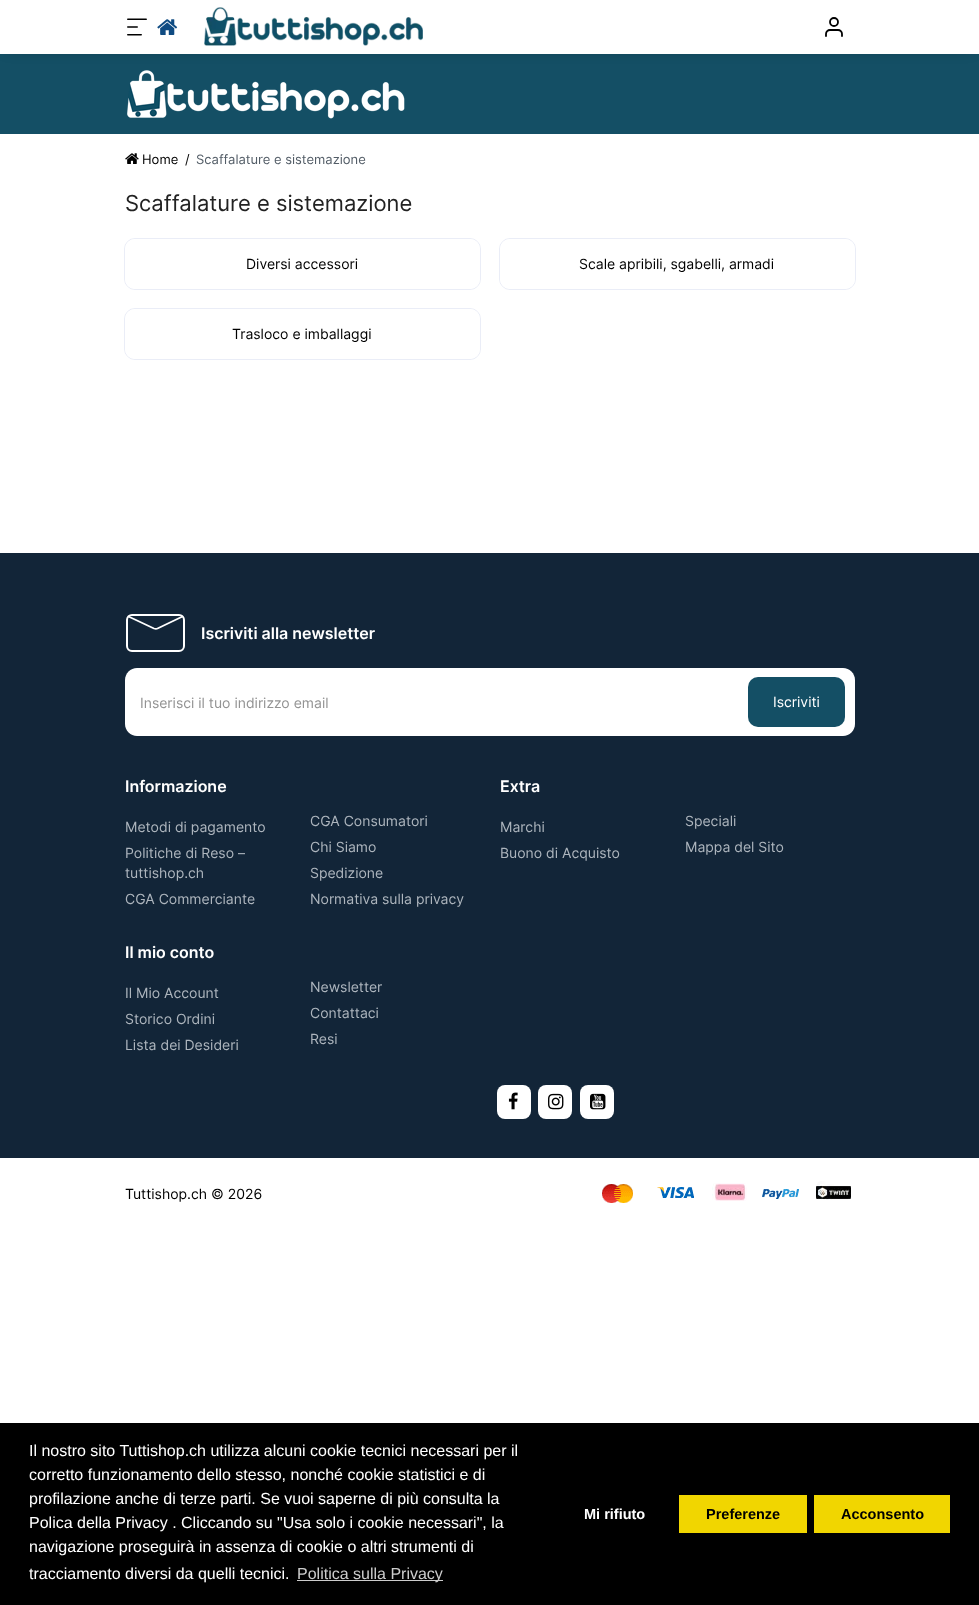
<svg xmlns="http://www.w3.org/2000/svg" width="979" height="1605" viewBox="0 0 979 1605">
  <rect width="100%" height="100%" fill="#fff"/>
  <path d="M0 54h979v80H0z" fill="#144f65"/>
  <image x="127" y="70" width="278" height="49" href="img/5.png"/>
  <path d="M7 7h965v40H7z" fill="#00000066" filter="blur(7.5px)"/>
  <path d="M0 0h979v54H0z" fill="#fff"/>
  <image x="127" y="18" width="20" height="18" href="img/1.png"/>
  <image x="157" y="19" width="21" height="16" href="img/2.png"/>
  <image x="204" y="7" width="219" height="39" href="img/3.png"/>
  <image x="825" y="17" width="18" height="20" href="img/4.png"/>
  <image x="125" y="153" width="14" height="11" href="img/6.png"/>
  <rect x="124.5" y="238.5" width="356" height="51" rx="10.5" fill="none" stroke="#eaedf7"/>
  <rect x="125" y="239" width="355" height="50" rx="10" fill="#fff"/>
  <rect x="499.5" y="238.5" width="356" height="51" rx="10.5" fill="none" stroke="#eaedf7"/>
  <rect x="500" y="239" width="355" height="50" rx="10" fill="#fff"/>
  <rect x="124.5" y="308.5" width="356" height="51" rx="10.5" fill="none" stroke="#eaedf7"/>
  <rect x="125" y="309" width="355" height="50" rx="10" fill="#fff"/>
  <path d="M0 553h979v605H0z" fill="#122538"/>
  <rect x="127" y="615" width="57" height="36" rx="5" fill="none" stroke="#fff" stroke-width="2"/>
  <path d="M128.5 616.5L154 628.5C155.5 629 156.5 629 157.5 628.5L182.5 616.5" fill="none" stroke="#fff" stroke-width="1.8" stroke-linecap="round" stroke-linejoin="round"/>
  <path d="M137 668H749V736H137C130.5 736 125 730.5 125 724V680C125 673.5 130.5 668 137 668Z" fill="#fff"/>
  <path d="M749 668H843C849.5 668 855 673.5 855 680V724C855 730.5 849.5 736 843 736H749Z" fill="#fff"/>
  <rect x="748" y="677" width="97" height="50" rx="10" fill="#144f65"/>
  <rect x="497" y="1085" width="34" height="34" rx="8" fill="#fff"/>
  <image x="508" y="1092" width="10" height="18" href="img/7.png"/>
  <rect x="538" y="1085" width="34" height="34" rx="8" fill="#fff"/>
  <image x="548" y="1093" width="16" height="17" href="img/8.png"/>
  <rect x="580" y="1085" width="34" height="34" rx="8" fill="#fff"/>
  <image x="590" y="1093" width="16" height="17" href="img/9.png"/>
  <image x="602" y="1184" width="31" height="19" href="img/10.png"/>
  <image x="657" y="1187" width="37" height="11" href="img/11.png"/>
  <image x="712" y="1183" width="35" height="18" href="img/12.png"/>
  <image x="762" y="1189" width="37" height="10" href="img/13.png"/>
  <image x="816" y="1181" width="35" height="19" href="img/14.png"/>
  <path d="M0 1423h979v182H0z" fill="#000"/>
  <path d="M297 1580h146v1H297z" fill="#ccc"/>
  <path d="M679 1495h128v38H679z" fill="#f1d600"/>
  <path d="M814 1495h136v38H814z" fill="#f1d600"/>
  <g font-family="Inter" font-size="13" fill="#000">
    <text x="142" y="164">Home</text>
    <text x="185" y="164">/</text>
  </g>
  <text x="196" y="164" font-family="Inter" font-size="13" fill="#535d67">Scaffalature e sistemazione</text>
  <text x="125" y="211" font-family="Inter" font-size="22" fill="#222">Scaffalature e sistemazione</text>
  <g font-family="Inter" font-size="14" fill="#000">
    <text x="246" y="269">Diversi accessori</text>
    <text x="579" y="269">Scale apribili, sgabelli, armadi</text>
    <text x="232" y="339">Trasloco e imballaggi</text>
  </g>
  <text x="201" y="639" font-family="Inter" font-size="16" font-weight="600" fill="#fff">Iscriviti alla newsletter</text>
  <text x="140" y="708" font-family="Inter" font-size="14" fill="#939393">Inserisci il tuo indirizzo email</text>
  <text x="773" y="707" font-family="Inter" font-size="14" fill="#fff">Iscriviti</text>
  <text x="125" y="792" font-family="Inter" font-size="16" font-weight="600" fill="#fff">Informazione</text>
  <g font-family="Inter" font-size="14" fill="#adb5bd">
    <text x="125" y="832">Metodi di pagamento</text>
    <text x="310" y="826">CGA Consumatori</text>
    <text x="125" y="858">Politiche di Reso –</text>
    <text x="125" y="878">tuttishop.ch</text>
    <text x="310" y="852">Chi Siamo</text>
    <text x="310" y="878">Spedizione</text>
    <text x="125" y="904">CGA Commerciante</text>
    <text x="310" y="904">Normativa sulla privacy</text>
  </g>
  <text x="500" y="792" font-family="Inter" font-size="16" font-weight="600" fill="#fff">Extra</text>
  <g font-family="Inter" font-size="14" fill="#adb5bd">
    <text x="500" y="832">Marchi</text>
    <text x="685" y="826">Speciali</text>
    <text x="500" y="858">Buono di Acquisto</text>
    <text x="685" y="852">Mappa del Sito</text>
  </g>
  <text x="125" y="958" font-family="Inter" font-size="16" font-weight="600" fill="#fff">Il mio conto</text>
  <g font-family="Inter" font-size="14" fill="#adb5bd">
    <text x="125" y="998">Il Mio Account</text>
    <text x="310" y="992">Newsletter</text>
    <text x="125" y="1024">Storico Ordini</text>
    <text x="310" y="1018">Contattaci</text>
    <text x="125" y="1050">Lista dei Desideri</text>
    <text x="310" y="1044">Resi</text>
  </g>
  <text x="125" y="1199" font-family="Inter" font-size="14" fill="#000">Tuttishop.ch © 2026</text>
  <g font-family="Liberation Sans" font-size="16" fill="#fff">
    <text x="29" y="1456">Il nostro sito Tuttishop.ch utilizza alcuni cookie tecnici necessari per il</text>
    <text x="29" y="1480">corretto funzionamento dello stesso, nonché cookie statistici e di</text>
    <text x="29" y="1504">profilazione anche di terze parti. Se vuoi saperne di più consulta la</text>
    <text x="29" y="1528">Polica della Privacy . Cliccando su "Usa solo i cookie necessari", la</text>
    <text x="29" y="1552">navigazione proseguirà in assenza di cookie o altri strumenti di</text>
    <text x="29" y="1579">tracciamento diversi da quelli tecnici.</text>
  </g>
  <text x="297" y="1579" font-family="Liberation Sans" font-size="16" fill="#ccc">Politica sulla Privacy</text>
  <text x="584" y="1519" font-family="Liberation Sans" font-size="14.5" font-weight="bold" fill="#fff">Mi rifiuto</text>
  <g font-family="Liberation Sans" font-size="14.5" font-weight="bold" fill="#000">
    <text x="706" y="1519">Preferenze</text>
    <text x="841" y="1519">Acconsento</text>
  </g>
</svg>
